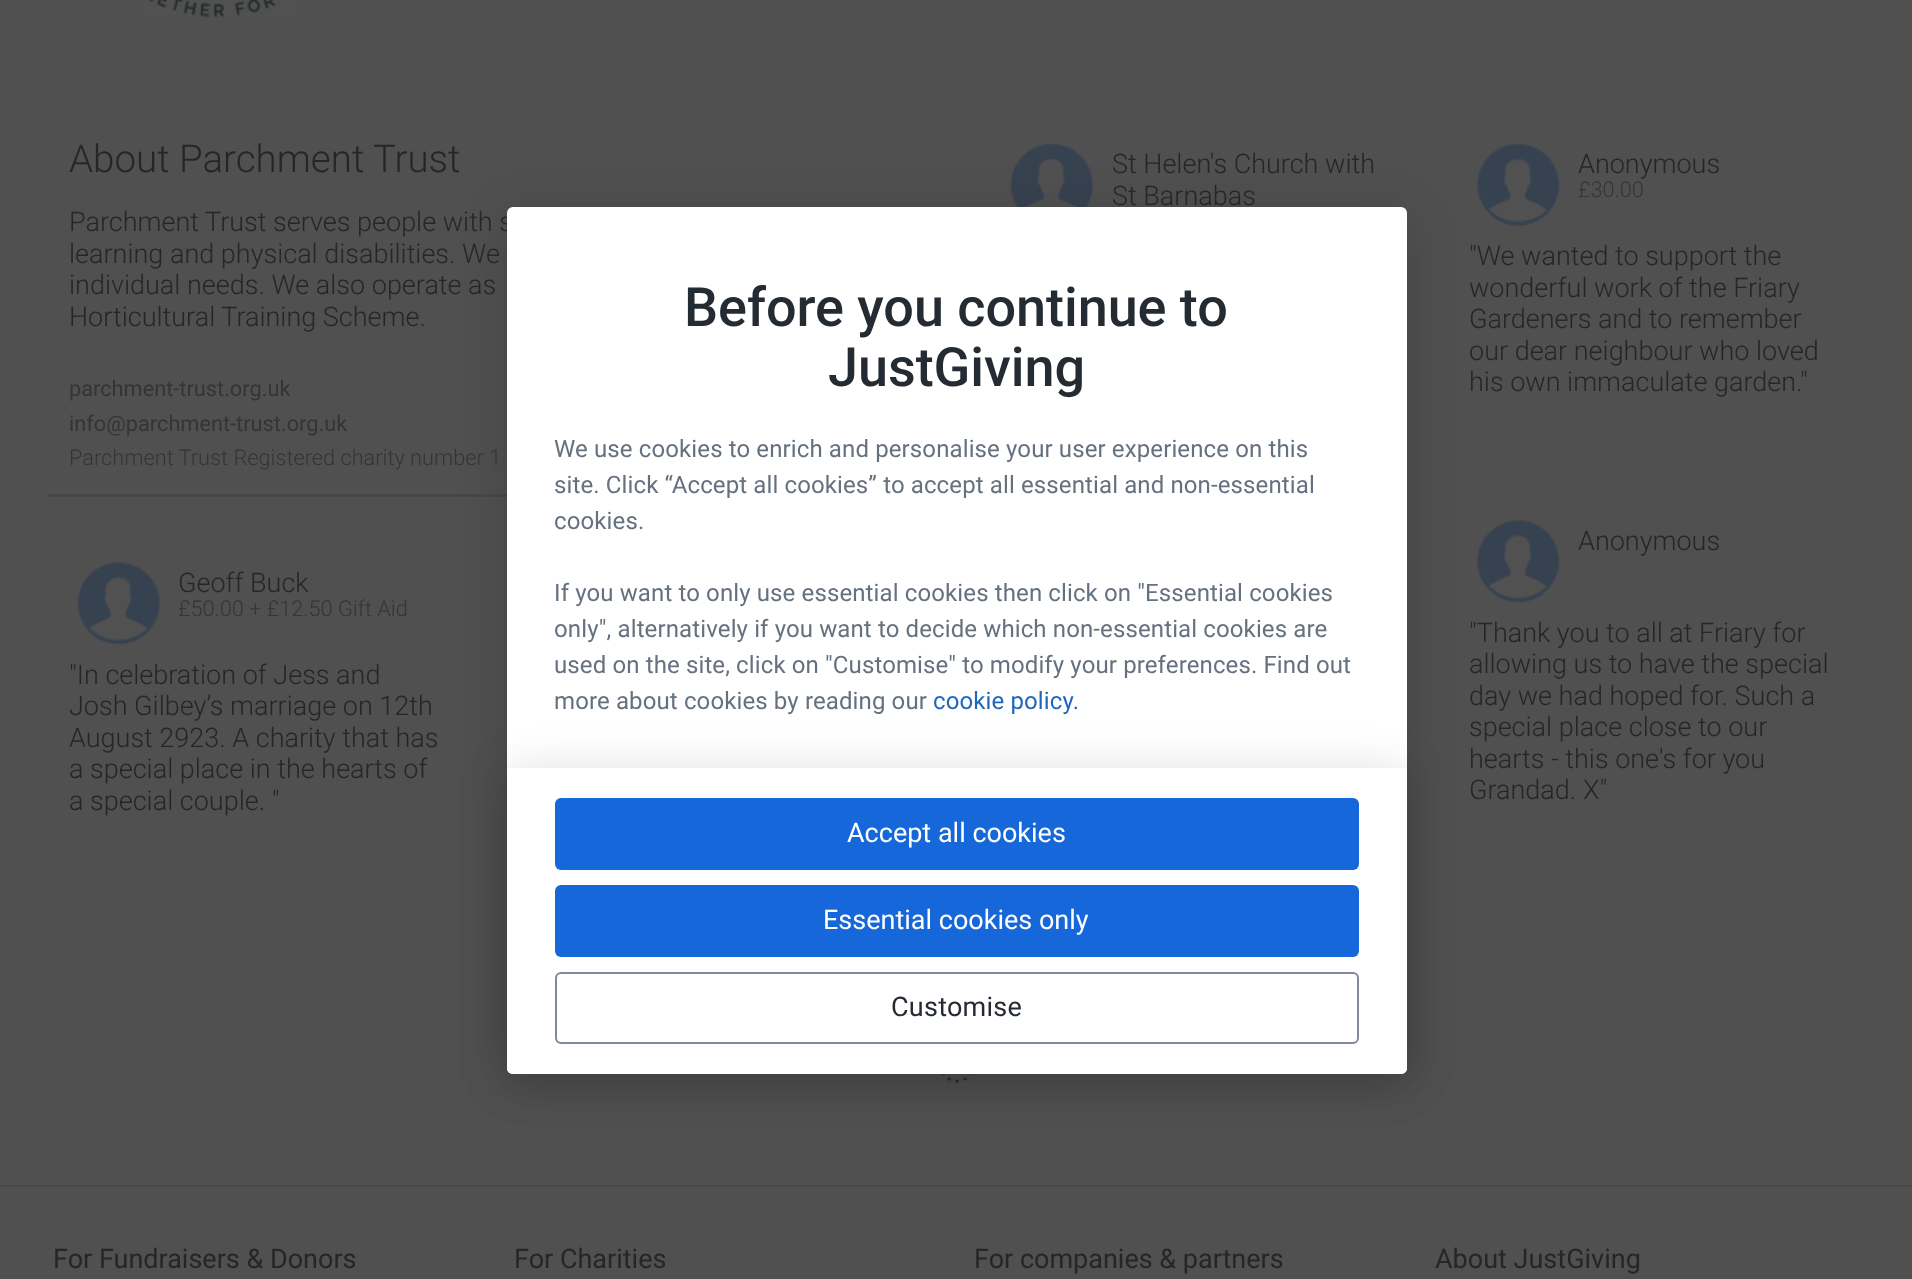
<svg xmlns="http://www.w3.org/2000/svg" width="1912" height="1279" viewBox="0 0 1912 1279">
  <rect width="100%" height="100%" fill="#505050"/>
  <image x="140" y="0" width="155" height="17" href="img/1.png"/>
  <path d="M47 494h460v3H47z" fill="#474747"/>
  <image x="1010" y="143" width="84" height="64" href="img/2.png"/>
  <image x="1477" y="143" width="84" height="84" href="img/3.png"/>
  <image x="77" y="562" width="84" height="84" href="img/4.png"/>
  <image x="1477" y="520" width="84" height="84" href="img/5.png"/>
  <image x="940" y="1074" width="34" height="9" href="img/6.png"/>
  <rect x="507" y="213" width="900" height="867" rx="6" fill="#00000026" filter="blur(24px)"/>
  <path d="M0 1185h1912v2H0z" fill="#474747"/>
  <text x="69" y="172" font-family="Roboto" font-size="38.5" font-weight="300" fill="#262626">About Parchment Trust</text>
  <g font-family="Roboto" font-size="27" font-weight="300" fill="#262626">
    <text x="69" y="231">Parchment Trust serves people with s</text>
    <text x="69" y="263">learning and physical disabilities. We</text>
    <text x="69" y="294">individual needs. We also operate as</text>
    <text x="69" y="326">Horticultural Training Scheme.</text>
  </g>
  <g font-family="Roboto" font-size="21.75" fill="#353535">
    <text x="69" y="396">parchment-trust.org.uk</text>
    <text x="69" y="431">info@parchment-trust.org.uk</text>
  </g>
  <text x="69" y="465" font-family="Roboto" font-size="21.75" font-weight="300" fill="#353535">Parchment Trust Registered charity number 1</text>
  <g font-family="Roboto" font-size="27" font-weight="300" fill="#262626">
    <text x="1112" y="173">St Helen's Church with</text>
    <text x="1112" y="205">St Barnabas</text>
    <text x="1578" y="173">Anonymous</text>
  </g>
  <text x="1578" y="197" font-family="Roboto" font-size="21.75" font-weight="300" fill="#353535">£30.00</text>
  <g font-family="Roboto" font-size="27" font-weight="300" fill="#262626">
    <text x="1469" y="265">"We wanted to support the</text>
    <text x="1469" y="297">wonderful work of the Friary</text>
    <text x="1469" y="328">Gardeners and to remember</text>
    <text x="1469" y="360">our dear neighbour who loved</text>
    <text x="1469" y="391">his own immaculate garden.</text>
    <text x="1800" y="391">"</text>
    <text x="178" y="592">Geoff Buck</text>
  </g>
  <text x="178" y="616" font-family="Roboto" font-size="21.75" font-weight="300" fill="#353535">£50.00 + £12.50 Gift Aid</text>
  <g font-family="Roboto" font-size="27" font-weight="300" fill="#262626">
    <text x="69" y="684">"In celebration of Jess and</text>
    <text x="69" y="715">Josh Gilbey’s marriage on 12th</text>
    <text x="69" y="747">August 2923. A charity that has</text>
    <text x="69" y="778">a special place in the hearts of</text>
    <text x="69" y="810">a special couple. "</text>
    <text x="1578" y="550">Anonymous</text>
    <text x="1469" y="642">"Thank you to all at Friary for</text>
    <text x="1469" y="673">allowing us to have the special</text>
    <text x="1469" y="705">day we had hoped for. Such a</text>
    <text x="1469" y="736">special place close to our</text>
    <text x="1469" y="768">hearts - this one's for you</text>
    <text x="1469" y="799">Grandad. X"</text>
  </g>
  <rect x="507" y="207" width="900" height="867" rx="6" fill="#fff"/>
  <g font-family="Roboto" font-size="54" font-weight="500" letter-spacing="-0.05" fill="#252b33">
    <text x="684" y="326">Before you continue to</text>
    <text x="828" y="386">JustGiving</text>
  </g>
  <g font-family="Roboto" font-size="24" letter-spacing="0.12" fill="#667180">
    <text x="554" y="457">We use cookies to enrich and personalise your user experience on this</text>
    <text x="554" y="493">site. Click “Accept all cookies” to accept all essential and non-essential</text>
    <text x="554" y="529">cookies.</text>
    <text x="554" y="601">If you want to only use essential cookies then click on "Essential cookies</text>
    <text x="554" y="637">only", alternatively if you want to decide which non-essential cookies are</text>
    <text x="554" y="673">used on the site, click on "Customise" to modify your preferences. Find out</text>
  </g>
  <rect x="507" y="774" width="900" height="306" rx="6" fill="#00000026" filter="blur(24px)"/>
  <text x="933" y="709" font-family="Roboto" font-size="24" letter-spacing="0.12" fill="#1d67be">cookie policy.</text>
  <text x="554" y="709" font-family="Roboto" font-size="24" letter-spacing="0.12" fill="#667180">more about cookies by reading our</text>
  <path d="M507 768H1407V1068C1407 1071.5 1404.5 1074 1401 1074H513C509.5 1074 507 1071.5 507 1068Z" fill="#fff"/>
  <rect x="555" y="798" width="804" height="72" rx="6" fill="#1667d9"/>
  <text x="847" y="842" font-family="Roboto" font-size="27" fill="#fff">Accept all cookies</text>
  <rect x="555" y="885" width="804" height="72" rx="6" fill="#1667d9"/>
  <text x="823" y="929" font-family="Roboto" font-size="27" fill="#fff">Essential cookies only</text>
  <rect x="556" y="973" width="802" height="70" rx="5" fill="none" stroke="#808a99" stroke-width="2"/>
  <text x="891" y="1016" font-family="Roboto" font-size="27" letter-spacing="0.25" fill="#252b33">Customise</text>
  <g font-family="Roboto" font-size="27" fill="#262626">
    <text x="53" y="1268">For Fundraisers &amp; Donors</text>
    <text x="514" y="1268">For Charities</text>
    <text x="974" y="1268">For companies &amp; partners</text>
    <text x="1435" y="1268">About JustGiving</text>
  </g>
</svg>
